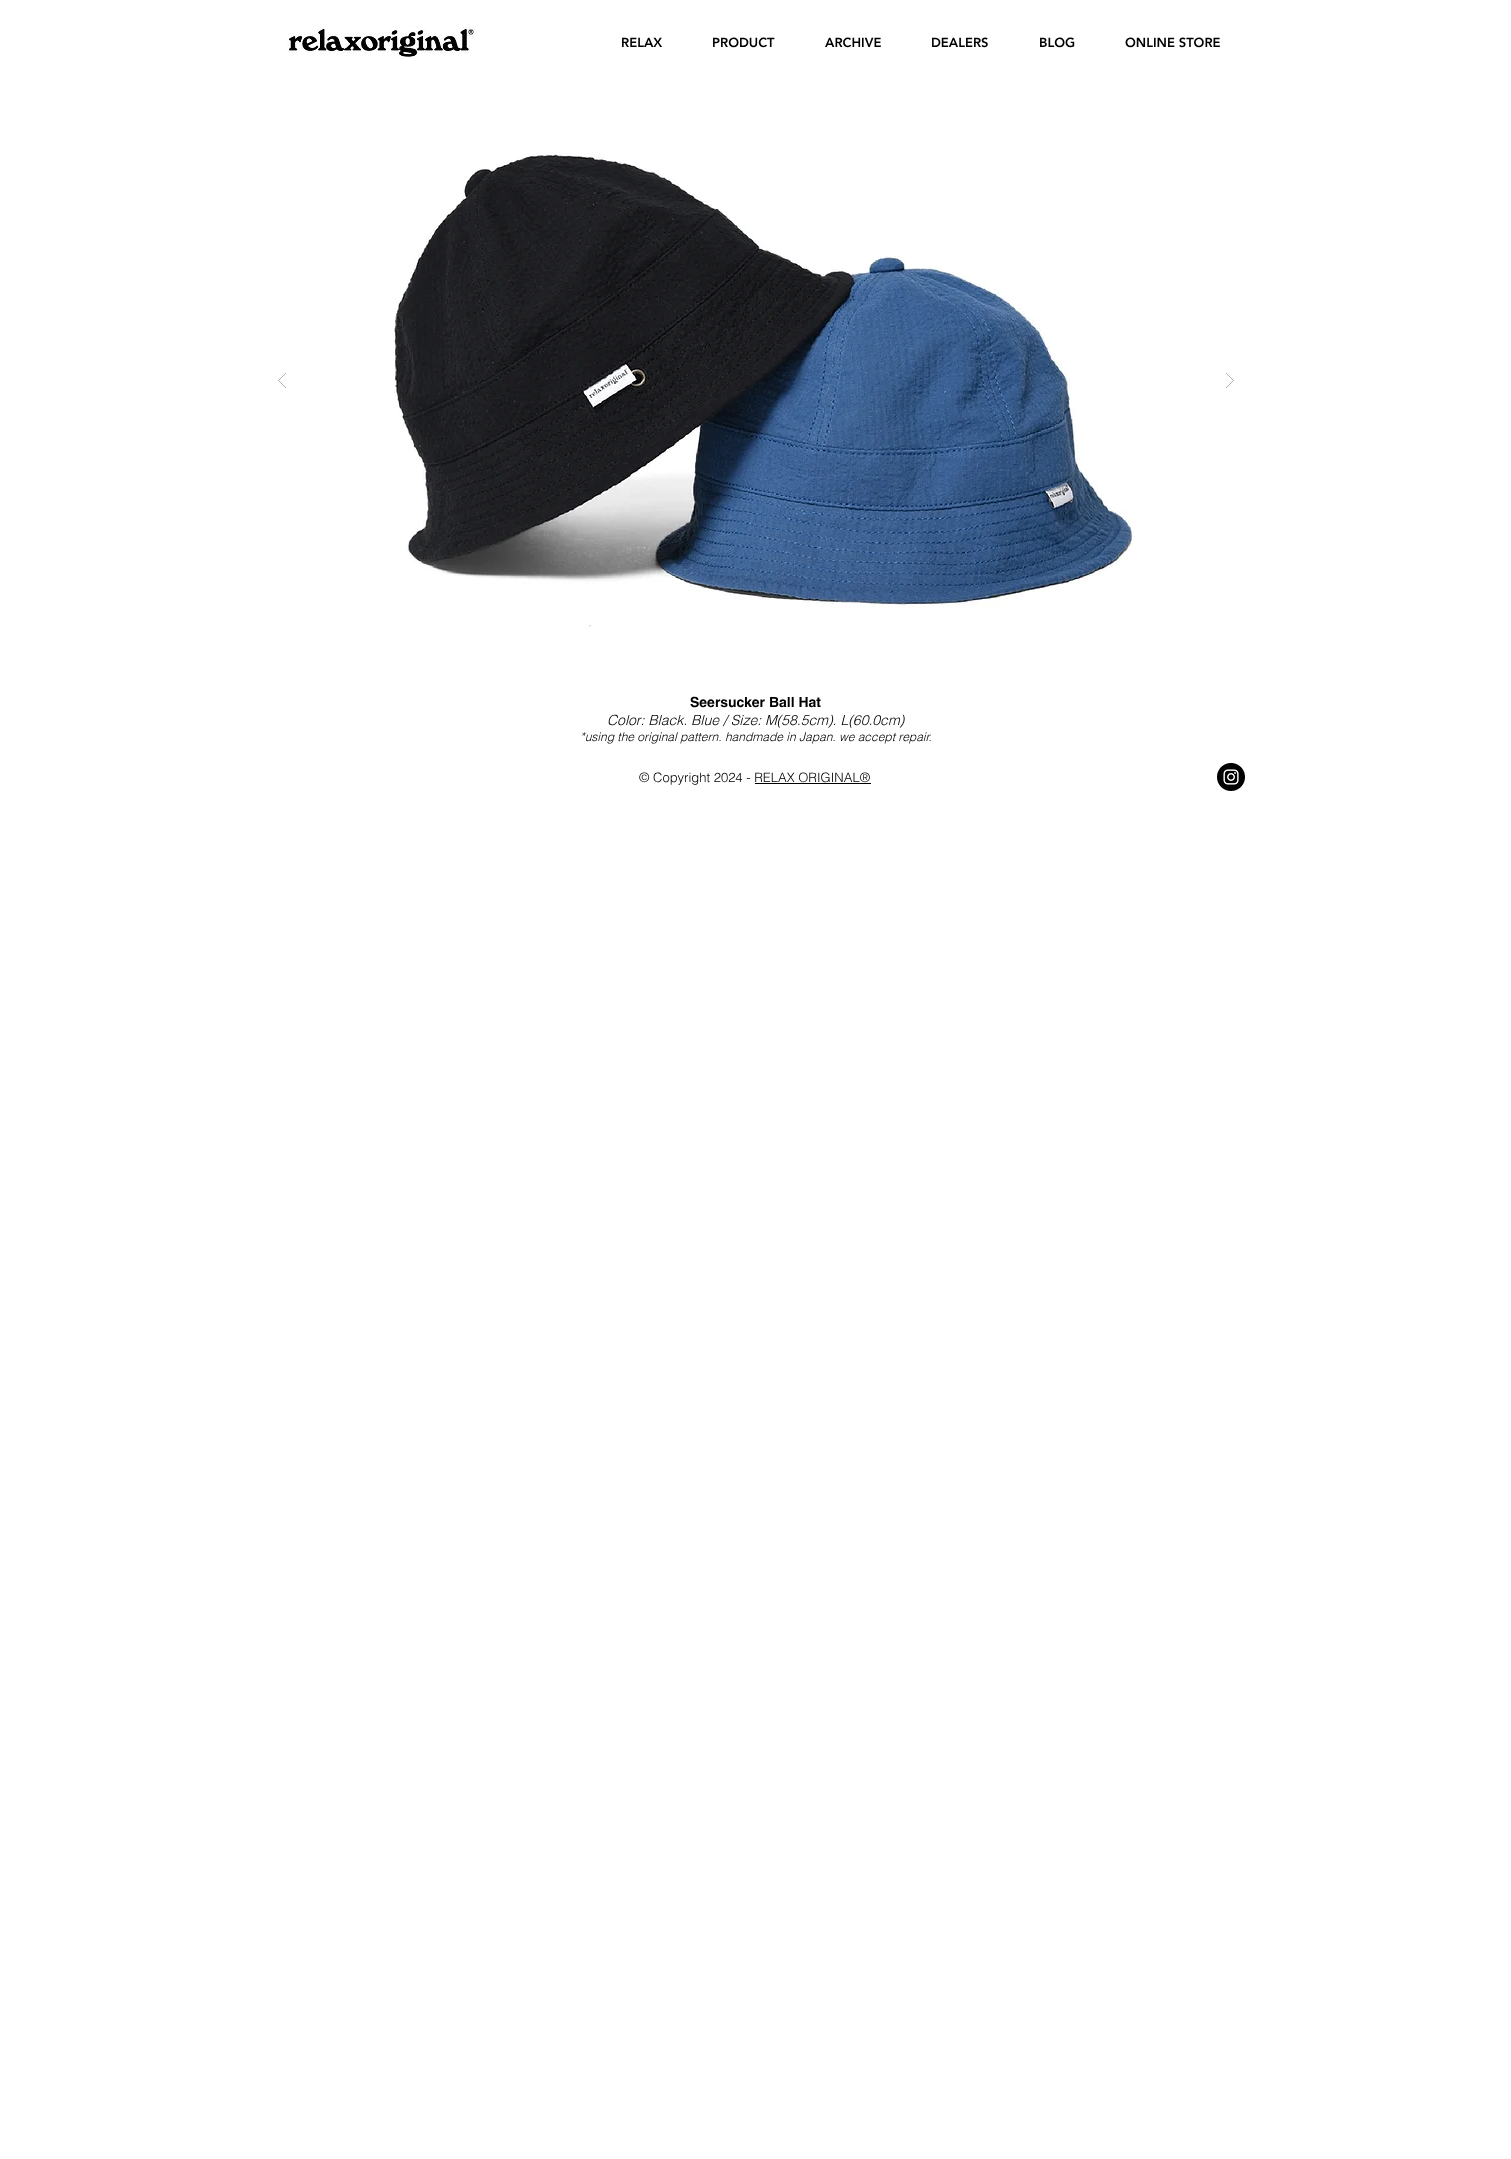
<svg xmlns="http://www.w3.org/2000/svg" width="1511" height="2159" viewBox="0 0 1511 2159">
  <rect width="100%" height="100%" fill="#fff"/>
  <image x="286" y="27" width="188" height="31" href="img/1.png"/>
  <image x="394" y="152" width="739" height="475" href="img/2.png"/>
  <image x="278" y="373" width="8" height="15" href="img/3.png"/>
  <image x="1226" y="373" width="8" height="15" href="img/4.png"/>
  <path d="M755 783h116v1H755z" fill="#000"/>
  <image x="1217" y="763" width="28" height="28" href="img/5.png"/>
  <g font-family="'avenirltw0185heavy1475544'" font-size="13" font-weight="900" fill="#000">
    <text x="621" y="47">RELAX</text>
    <text x="712" y="47">PRODUCT</text>
    <text x="825" y="47">ARCHIVE</text>
    <text x="931" y="47">DEALERS</text>
    <text x="1039" y="47">BLOG</text>
    <text x="1125" y="47">ONLINE STORE</text>
  </g>
  <text x="690" y="707" font-family="helvetica" font-size="14" font-weight="bold" fill="#000">Seersucker Ball Hat</text>
  <text x="607" y="725" font-family="helvetica" font-size="14" font-weight="300" font-style="italic" fill="#000">Color: Black. Blue / Size: M(58.5cm). L(60.0cm)</text>
  <text x="580" y="741" font-family="helvetica" font-size="12" font-weight="300" font-style="italic" fill="#000">*using the original pattern. handmade in Japan. we accept repair.</text>
  <text x="639" y="782" font-family="helvetica" font-size="13" font-weight="300" fill="#000">© Copyright 2024 - RELAX ORIGINAL®</text>
</svg>
